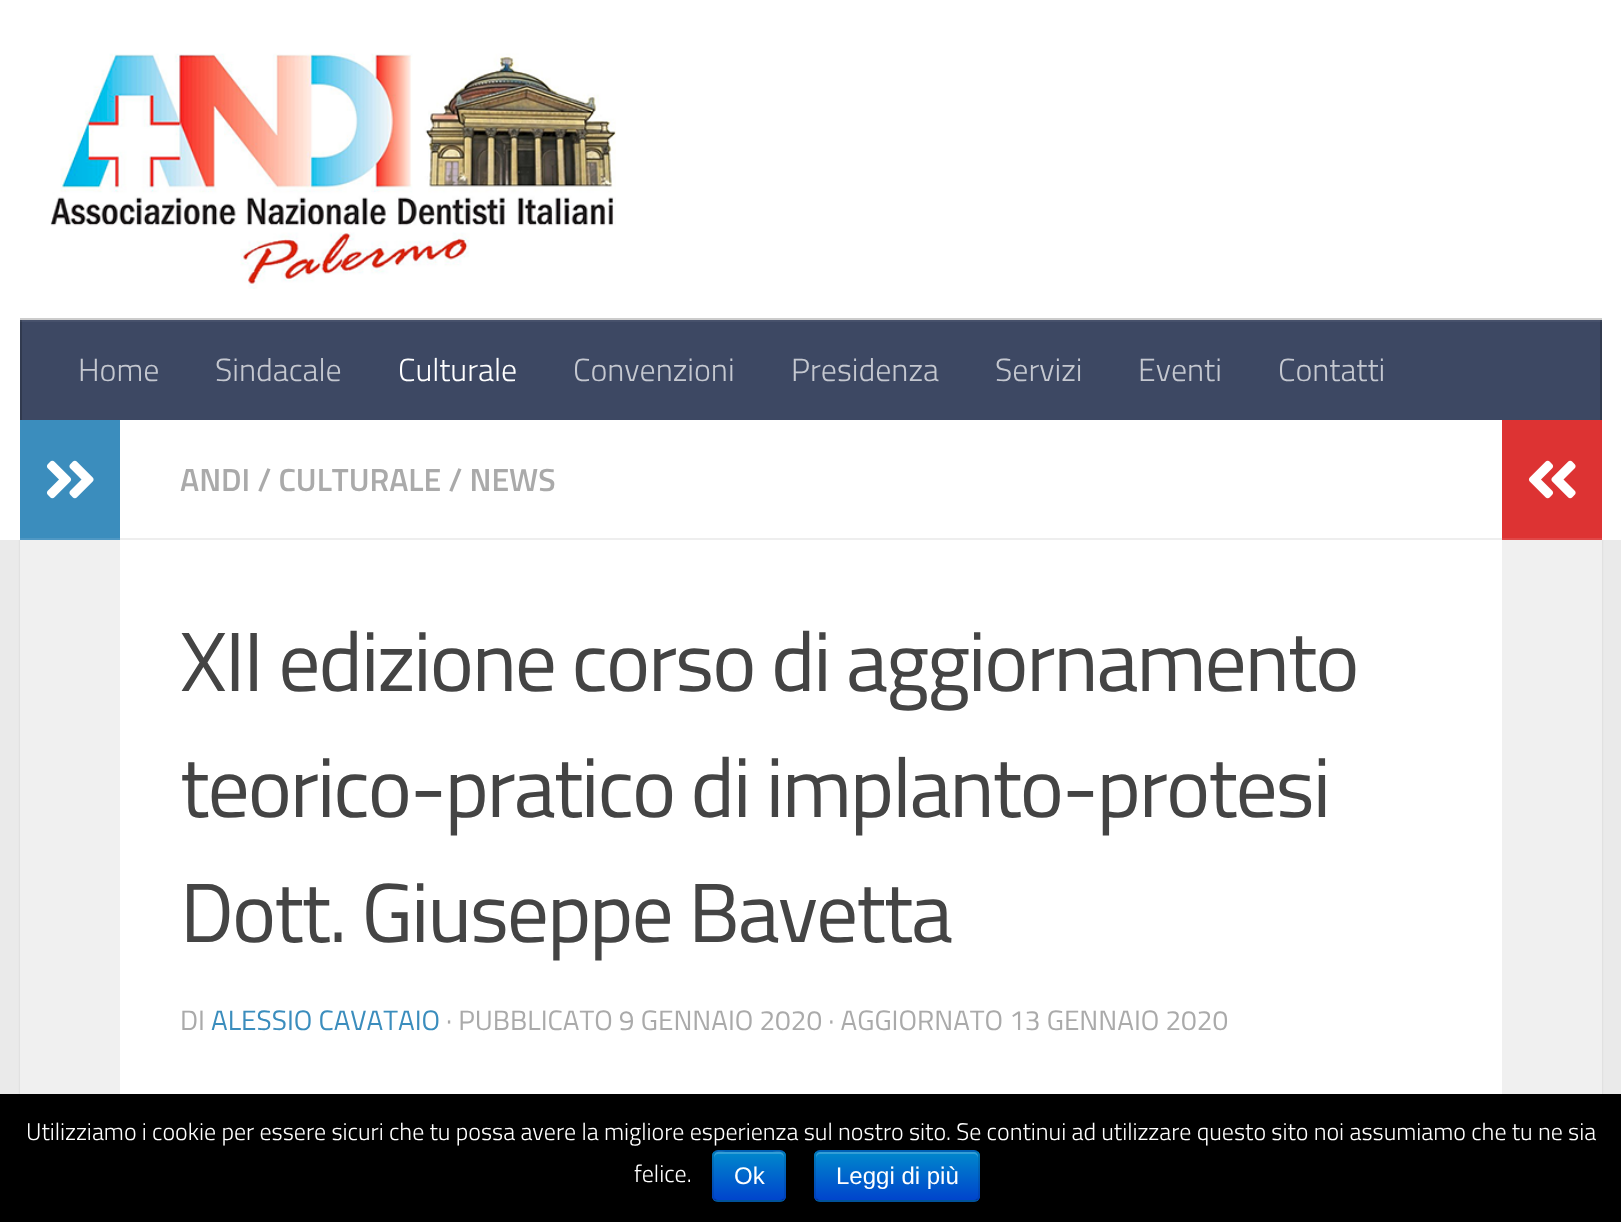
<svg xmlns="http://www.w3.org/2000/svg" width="1621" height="1222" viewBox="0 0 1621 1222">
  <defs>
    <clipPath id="clip1"><rect x="712" y="1150" width="74" height="52" rx="6"/></clipPath>
    <linearGradient id="g1" gradientUnits="userSpaceOnUse" x1="749" y1="1152" x2="749" y2="1200"><stop offset="0" stop-color="#08c"/><stop offset="1" stop-color="#04c"/></linearGradient>
    <clipPath id="clip2"><rect x="814" y="1150" width="166" height="52" rx="6"/></clipPath>
    <linearGradient id="g2" gradientUnits="userSpaceOnUse" x1="897" y1="1152" x2="897" y2="1200"><stop offset="0" stop-color="#08c"/><stop offset="1" stop-color="#04c"/></linearGradient>
  </defs>
  <rect width="100%" height="100%" fill="#eaeaea"/>
  <path d="M20 422h1582v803H20z" fill="#0000001a" filter="blur(1px)"/>
  <path d="M0 0h1621v540H0z" fill="#fff"/>
  <image x="50" y="53" width="566" height="236" href="img/1.png"/>
  <path d="M20 318h1582v2H20z" fill="#ccc"/>
  <path d="M22 322h1578v98H22z" fill="#3d4863"/>
  <path d="M20 320h1582v2H20z" fill="#47516b"/>
  <path d="M1600 320h2v100H1600z" fill="#313a4f"/>
  <path d="M1600 320h2v2H1600z" fill="#3b4458"/>
  <path d="M20 320h2v100H20z" fill="#313a4f"/>
  <path d="M20 320h2v2H20z" fill="#3b4458"/>
  <path d="M120 540h1382v554H120z" fill="#fff"/>
  <path d="M20 540h100v554H20z" fill="#f0f0f0"/>
  <path d="M20 420h100v118H20z" fill="#3b8dbd"/>
  <path d="M20 538h100v2H20z" fill="#4f98c4"/>
  <image x="46" y="460" width="48" height="39" href="img/2.png"/>
  <path d="M120 538h1382v2H120z" fill="#eee"/>
  <path d="M1502 420h100v118H1502z" fill="#d33"/>
  <path d="M1502 538h100v2H1502z" fill="#e04747"/>
  <image x="1528" y="460" width="48" height="39" href="img/3.png"/>
  <path d="M1502 540h100v554H1502z" fill="#f0f0f0"/>
  <path d="M0 1094h1621v128H0z" fill="#000"/>
  <rect x="712" y="1150" width="74" height="52" rx="6" fill="#006dcc"/>
  <g clip-path="url(#clip1)">
    <path d="M712 1152h74v48H712z" fill="url(#g1)"/>
  </g>
  <path d="M718 1154H780C782 1154 784 1156 784 1158C784 1149 777 1152 770 1152H728C721 1152 714 1149 714 1158C714 1156 716 1154 718 1154Z" fill="#ffffff33"/>
  <path d="M783.5 1199.5C782.5 1200.5 781.5 1201 780 1201H718C716.5 1201 715.5 1200.5 714.5 1199.5" fill="none" stroke="#00000040" stroke-width="2"/>
  <path d="M714.5 1199.5C713.5 1198.5 713 1197.5 713 1196V1156C713 1154.5 713.5 1153.5 714.5 1152.5C715.5 1151.5 716.5 1151 718 1151H780C781.5 1151 782.5 1151.5 783.5 1152.5C784.5 1153.5 785 1154.5 785 1156V1196C785 1197.5 784.5 1198.5 783.5 1199.5" fill="none" stroke="#0000001a" stroke-width="2"/>
  <rect x="814" y="1150" width="166" height="52" rx="6" fill="#006dcc"/>
  <g clip-path="url(#clip2)">
    <path d="M814 1152h166v48H814z" fill="url(#g2)"/>
  </g>
  <path d="M820 1154H974C976 1154 978 1156 978 1158V1156C978 1154 976 1152 974 1152H820C818 1152 816 1154 816 1156V1158C816 1156 818 1154 820 1154Z" fill="#ffffff33"/>
  <path d="M977.5 1199.5C976.5 1200.5 975.5 1201 974 1201H820C818.5 1201 817.5 1200.5 816.5 1199.5" fill="none" stroke="#00000040" stroke-width="2"/>
  <path d="M816.5 1199.5C815.5 1198.5 815 1197.5 815 1196V1156C815 1154.5 815.5 1153.5 816.5 1152.5C817.5 1151.5 818.5 1151 820 1151H974C975.5 1151 976.5 1151.5 977.5 1152.5C978.5 1153.5 979 1154.5 979 1156V1196C979 1197.5 978.5 1198.5 977.5 1199.5" fill="none" stroke="#0000001a" stroke-width="2"/>
  <g font-family="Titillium" font-size="32" font-weight="300" fill="#c5c8d0">
    <text x="78" y="381">Home</text>
    <text x="215" y="381">Sindacale</text>
  </g>
  <text x="398" y="381" font-family="Titillium" font-size="32" font-weight="300" fill="#fff">Culturale</text>
  <g font-family="Titillium" font-size="32" font-weight="300" fill="#c5c8d0">
    <text x="573" y="381">Convenzioni</text>
    <text x="791" y="381">Presidenza</text>
    <text x="995" y="381">Servizi</text>
    <text x="1138" y="381">Eventi</text>
    <text x="1278" y="381">Contatti</text>
  </g>
  <text x="180" y="491" font-family="Titillium" font-size="32" font-weight="600" fill="#aaa">ANDI / CULTURALE / NEWS</text>
  <g font-family="Titillium" font-size="83.8" letter-spacing="-2" fill="#444">
    <text x="180" y="691">XII edizione corso di aggiornamento</text>
    <text x="180" y="817">teorico-pratico di implanto-protesi</text>
    <text x="180" y="942">Dott. Giuseppe Bavetta</text>
  </g>
  <text x="180" y="1030" font-family="Titillium" font-size="28" fill="#aaa">DI</text>
  <text x="211" y="1030" font-family="Titillium" font-size="28" fill="#3b8dbd">ALESSIO CAVATAIO</text>
  <text x="446" y="1030" font-family="Titillium" font-size="28" fill="#aaa">· PUBBLICATO 9 GENNAIO 2020 · AGGIORNATO 13 GENNAIO 2020</text>
  <g font-family="Titillium" font-size="24" font-weight="300" fill="#fff">
    <text x="26" y="1140">Utilizziamo i cookie per essere sicuri che tu possa avere la migliore esperienza sul nostro sito. Se continui ad utilizzare questo sito noi assumiamo che tu ne sia</text>
    <text x="634" y="1182">felice.</text>
  </g>
  <g font-family="Liberation Sans" font-size="24" fill="#fff">
    <text x="734" y="1184">Ok</text>
    <text x="836" y="1184">Leggi di più</text>
  </g>
</svg>
